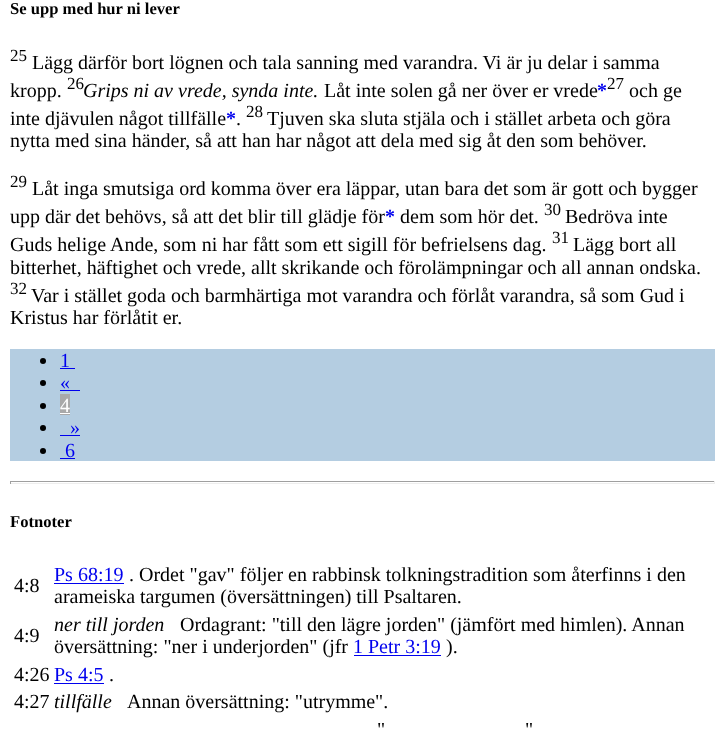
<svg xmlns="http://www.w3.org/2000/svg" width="724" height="729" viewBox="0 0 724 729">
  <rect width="100%" height="100%" fill="#fff"/>
  <path d="M10 349h705v112H10z" fill="#b4cde1"/>
  <circle cx="43" cy="361" r="3" fill="#000"/>
  <path d="M60 368h15v1H60z" fill="#00e"/>
  <circle cx="43" cy="383" r="3" fill="#000"/>
  <path d="M60 390h20v1H60z" fill="#00e"/>
  <circle cx="43" cy="406" r="3" fill="#000"/>
  <path d="M60 394h10v21H60z" fill="#a9a9a9"/>
  <path d="M60 413h10v1H60z" fill="#fff"/>
  <circle cx="43" cy="428" r="3" fill="#000"/>
  <path d="M60 435h20v1H60z" fill="#00e"/>
  <circle cx="43" cy="451" r="3" fill="#000"/>
  <path d="M60 458h15v1H60z" fill="#00e"/>
  <path d="M10 481h705v1H10z" fill="#9f9f9f"/>
  <path d="M714 481h1v3H714z" fill="#eee"/>
  <path d="M10 483h705v1H10z" fill="#eee"/>
  <path d="M10 481h1v3H10z" fill="#9f9f9f"/>
  <path d="M54 583h70v1H54z" fill="#00e"/>
  <path d="M354 655h87v1H354z" fill="#00e"/>
  <path d="M54 683h50v1H54z" fill="#00e"/>
  <text x="10" y="14" font-family="Liberation Serif" font-size="16.6" font-weight="bold" fill="#000">Se upp med hur ni lever</text>
  <text x="10" y="61" font-family="Liberation Serif" font-size="17" fill="#000">25</text>
  <g font-family="Liberation Serif" font-size="20" fill="#000">
    <text x="32" y="69">Lägg därför bort lögnen och tala sanning med varandra. Vi är ju delar i samma</text>
    <text x="10" y="97">kropp.</text>
  </g>
  <text x="67" y="89" font-family="Liberation Serif" font-size="17" fill="#000">26</text>
  <text x="83" y="97" font-family="Liberation Serif" font-size="20" font-style="italic" fill="#000">Grips ni av vrede, synda inte.</text>
  <text x="324" y="97" font-family="Liberation Serif" font-size="20" fill="#000">Låt inte solen gå ner över er vrede</text>
  <text x="597" y="97" font-family="Liberation Serif" font-size="20" font-weight="bold" fill="#00e">*</text>
  <text x="607" y="89" font-family="Liberation Serif" font-size="17" fill="#000">27</text>
  <g font-family="Liberation Serif" font-size="20" fill="#000">
    <text x="629" y="97">och ge</text>
    <text x="10" y="125">inte djävulen något tillfälle</text>
  </g>
  <text x="226" y="125" font-family="Liberation Serif" font-size="20" font-weight="bold" fill="#00e">*</text>
  <text x="236" y="125" font-family="Liberation Serif" font-size="20" fill="#000">.</text>
  <text x="246" y="117" font-family="Liberation Serif" font-size="17" fill="#000">28</text>
  <g font-family="Liberation Serif" font-size="20" fill="#000">
    <text x="267" y="125">Tjuven ska sluta stjäla och i stället arbeta och göra</text>
    <text x="10" y="147">nytta med sina händer, så att han har något att dela med sig åt den som behöver.</text>
  </g>
  <text x="10" y="187" font-family="Liberation Serif" font-size="17" fill="#000">29</text>
  <g font-family="Liberation Serif" font-size="20" fill="#000">
    <text x="32" y="195">Låt inga smutsiga ord komma över era läppar, utan bara det som är gott och bygger</text>
    <text x="10" y="223">upp där det behövs, så att det blir till glädje för</text>
  </g>
  <text x="385" y="223" font-family="Liberation Serif" font-size="20" font-weight="bold" fill="#00e">*</text>
  <text x="400" y="223" font-family="Liberation Serif" font-size="20" fill="#000">dem som hör det.</text>
  <text x="544" y="215" font-family="Liberation Serif" font-size="17" fill="#000">30</text>
  <g font-family="Liberation Serif" font-size="20" fill="#000">
    <text x="565" y="223">Bedröva inte</text>
    <text x="10" y="251">Guds helige Ande, som ni har fått som ett sigill för befrielsens dag.</text>
  </g>
  <text x="552" y="243" font-family="Liberation Serif" font-size="17" fill="#000">31</text>
  <g font-family="Liberation Serif" font-size="20" fill="#000">
    <text x="573" y="251">Lägg bort all</text>
    <text x="10" y="274">bitterhet, häftighet och vrede, allt skrikande och förolämpningar och all annan ondska.</text>
  </g>
  <text x="10" y="294" font-family="Liberation Serif" font-size="17" fill="#000">32</text>
  <g font-family="Liberation Serif" font-size="20" fill="#000">
    <text x="31" y="302">Var i stället goda och barmhärtiga mot varandra och förlåt varandra, så som Gud i</text>
    <text x="10" y="324">Kristus har förlåtit er.</text>
  </g>
  <g font-family="Liberation Serif" font-size="20" fill="#00e">
    <text x="60" y="367">1</text>
    <text x="60" y="389">«</text>
  </g>
  <text x="60" y="412" font-family="Liberation Serif" font-size="20" fill="#fff">4</text>
  <g font-family="Liberation Serif" font-size="20" fill="#00e">
    <text x="70" y="434">»</text>
    <text x="65" y="457">6</text>
  </g>
  <text x="10" y="527" font-family="Liberation Serif" font-size="16.6" font-weight="bold" fill="#000">Fotnoter</text>
  <text x="14" y="592" font-family="Liberation Serif" font-size="20" fill="#000">4:8</text>
  <text x="54" y="581" font-family="Liberation Serif" font-size="20" fill="#00e">Ps 68:19</text>
  <g font-family="Liberation Serif" font-size="20" fill="#000">
    <text x="129" y="581">. Ordet "gav" följer en rabbinsk tolkningstradition som återfinns i den</text>
    <text x="54" y="603">arameiska targumen (översättningen) till Psaltaren.</text>
    <text x="14" y="642">4:9</text>
  </g>
  <text x="54" y="631" font-family="Liberation Serif" font-size="20" font-style="italic" fill="#000">ner till jorden</text>
  <g font-family="Liberation Serif" font-size="20" fill="#000">
    <text x="180" y="631">Ordagrant: "till den lägre jorden" (jämfört med himlen). Annan</text>
    <text x="54" y="653">översättning: "ner i underjorden" (jfr</text>
  </g>
  <text x="353" y="653" font-family="Liberation Serif" font-size="20" fill="#00e">1 Petr 3:19</text>
  <g font-family="Liberation Serif" font-size="20" fill="#000">
    <text x="446" y="653">).</text>
    <text x="14" y="681">4:26</text>
  </g>
  <text x="54" y="681" font-family="Liberation Serif" font-size="20" fill="#00e">Ps 4:5</text>
  <g font-family="Liberation Serif" font-size="20" fill="#000">
    <text x="109" y="681">.</text>
    <text x="14" y="708">4:27</text>
  </g>
  <text x="54" y="708" font-family="Liberation Serif" font-size="20" font-style="italic" fill="#000">tillfälle</text>
  <g font-family="Liberation Serif" font-size="20" fill="#000">
    <text x="127" y="708">Annan översättning: "utrymme".</text>
    <text x="377" y="736">"</text>
    <text x="525" y="736">"</text>
  </g>
</svg>
